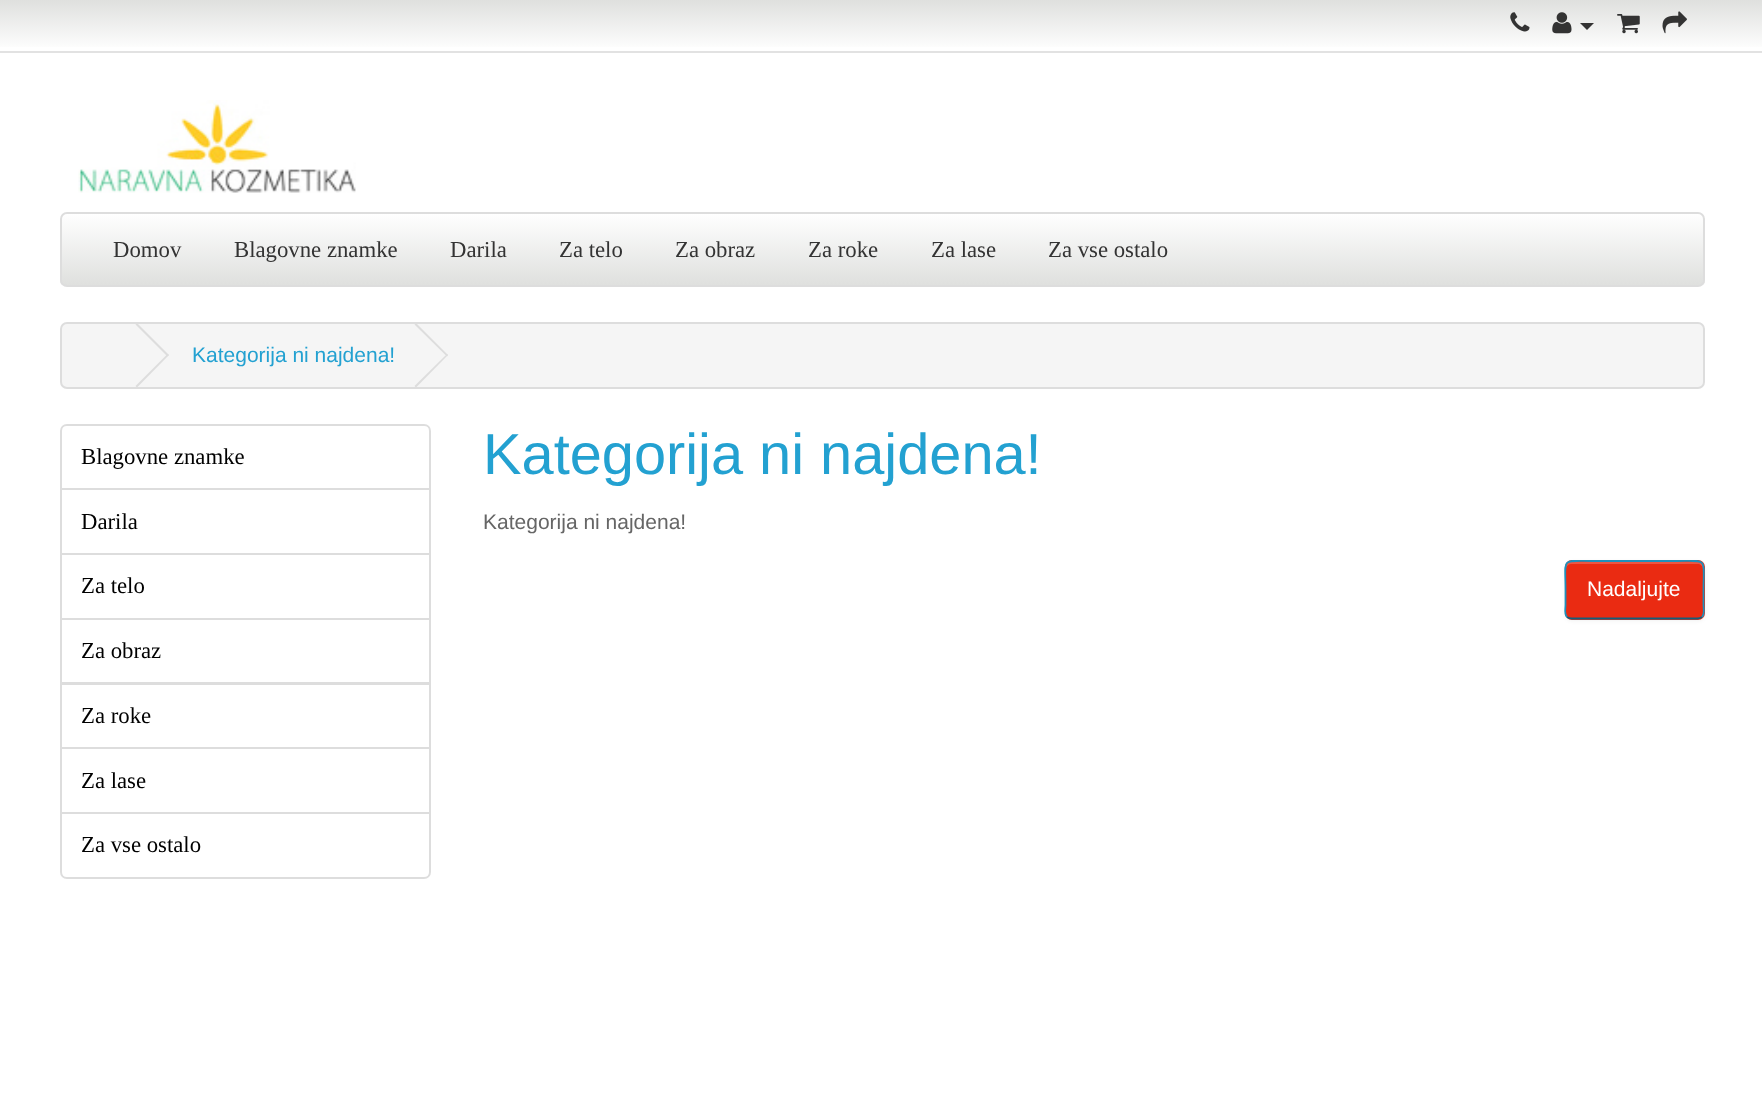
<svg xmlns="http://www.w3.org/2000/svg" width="1762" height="1117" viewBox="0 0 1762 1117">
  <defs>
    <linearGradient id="g1" gradientUnits="userSpaceOnUse" x1="881" y1="51" x2="881" y2="0"><stop offset="0" stop-color="#fff"/><stop offset="1" stop-color="#dfe0de"/></linearGradient>
    <clipPath id="clip1"><rect x="60" y="212" width="1645" height="75" rx="7"/></clipPath>
    <linearGradient id="g2" gradientUnits="userSpaceOnUse" x1="882" y1="213" x2="882" y2="285"><stop offset="0" stop-color="#fff"/><stop offset="1" stop-color="#dfe0de"/></linearGradient>
  </defs>
  <rect width="100%" height="100%" fill="#fff"/>
  <path d="M0 0h1762v47H0z" fill="url(#g1)"/>
  <path d="M0 51h1762v2H0z" fill="#e2e2e2"/>
  <image x="1510" y="12" width="20" height="20" href="img/1.png"/>
  <image x="1552" y="12" width="20" height="22" href="img/2.png"/>
  <path d="M1580 23H1594L1587 30Z" fill="#333"/>
  <image x="1617" y="14" width="23" height="20" href="img/3.png"/>
  <image x="1662" y="11" width="25" height="23" href="img/4.png"/>
  <image x="78" y="100" width="278" height="93" href="img/5.png"/>
  <g clip-path="url(#clip1)">
    <path d="M60 214h1645v71H60z" fill="url(#g2)"/>
  </g>
  <rect x="61" y="213" width="1643" height="73" rx="6" fill="none" stroke="#ddd" stroke-width="2"/>
  <rect x="61" y="323" width="1643" height="65" rx="6" fill="#f5f5f5" stroke="#ddd" stroke-width="2"/>
  <path d="M135.5 324.5L137 323L169 355L167.5 356.5Z" fill="#ddd"/>
  <path d="M135.5 386L167.5 354L169 355L137 387.5Z" fill="#ddd"/>
  <path d="M414.5 324.5L416 323L448 355L447 356.5Z" fill="#ddd"/>
  <path d="M414.5 386L447 354L448 355L416 387.5Z" fill="#ddd"/>
  <path d="M67 425H424C427.5 425 430 427.5 430 431V489H61V431C61 427.5 63.5 425 67 425Z" fill="none" stroke="#ddd" stroke-width="2"/>
  <path d="M61 489h369v65H61z" fill="none" stroke="#ddd" stroke-width="2"/>
  <path d="M61 554h369v65H61z" fill="none" stroke="#ddd" stroke-width="2"/>
  <path d="M61 619h369v64H61z" fill="none" stroke="#ddd" stroke-width="2"/>
  <path d="M61 684h369v64H61z" fill="none" stroke="#ddd" stroke-width="2"/>
  <path d="M61 748h369v65H61z" fill="none" stroke="#ddd" stroke-width="2"/>
  <path d="M61 813H430V872C430 875.5 427.5 878 424 878H67C63.5 878 61 875.5 61 872Z" fill="#fff" stroke="#ddd" stroke-width="2"/>
  <rect x="1565" y="562" width="140" height="59" rx="7" fill="#0000000d" filter="blur(2px)"/>
  <rect x="1565" y="560" width="140" height="60" rx="7" fill="#ea2b12"/>
  <path d="M1572 564H1698C1700 564 1703 566 1703 569V567C1703 564 1701 562 1698 562H1571C1568 562 1566 564 1566 567V569C1566 566 1569 564 1572 564Z" fill="#ee5541"/>
  <path d="M1702 617C1700.5 618 1699 618.5 1697.5 618.5H1571.5C1570 618.5 1568.5 618 1567 617" fill="none" stroke="#145e7a" stroke-width="1.8"/>
  <path d="M1567 617C1564 614 1565.5 608.5 1565.5 605V590C1565.5 557 1560 561 1592.5 561H1676.5C1709 561 1703.5 557 1703.5 590V605C1703.5 608.5 1705 614 1702 617" fill="none" stroke="#1f90bb" stroke-width="1.8"/>
  <g font-family="Liberation Serif" font-size="22.75" fill="#333">
    <text x="113" y="257">Domov</text>
    <text x="234" y="257">Blagovne znamke</text>
    <text x="450" y="257">Darila</text>
    <text x="559" y="257">Za telo</text>
    <text x="675" y="257">Za obraz</text>
    <text x="808" y="257">Za roke</text>
    <text x="931" y="257">Za lase</text>
    <text x="1048" y="257">Za vse ostalo</text>
  </g>
  <text x="192" y="362" font-family="Liberation Sans" font-size="21" fill="#23a1d1">Kategorija ni najdena!</text>
  <g font-family="Liberation Serif" font-size="22.75" fill="#000">
    <text x="81" y="464">Blagovne znamke</text>
    <text x="81" y="529">Darila</text>
    <text x="81" y="593">Za telo</text>
    <text x="81" y="658">Za obraz</text>
    <text x="81" y="723">Za roke</text>
    <text x="81" y="788">Za lase</text>
    <text x="81" y="852">Za vse ostalo</text>
  </g>
  <text x="483" y="474" font-family="Liberation Sans" font-size="57.75" fill="#23a1d1">Kategorija ni najdena!</text>
  <text x="483" y="529" font-family="Liberation Sans" font-size="21" fill="#666">Kategorija ni najdena!</text>
  <text x="1587" y="596" font-family="Liberation Sans" font-size="21" fill="#fff">Nadaljujte</text>
</svg>
